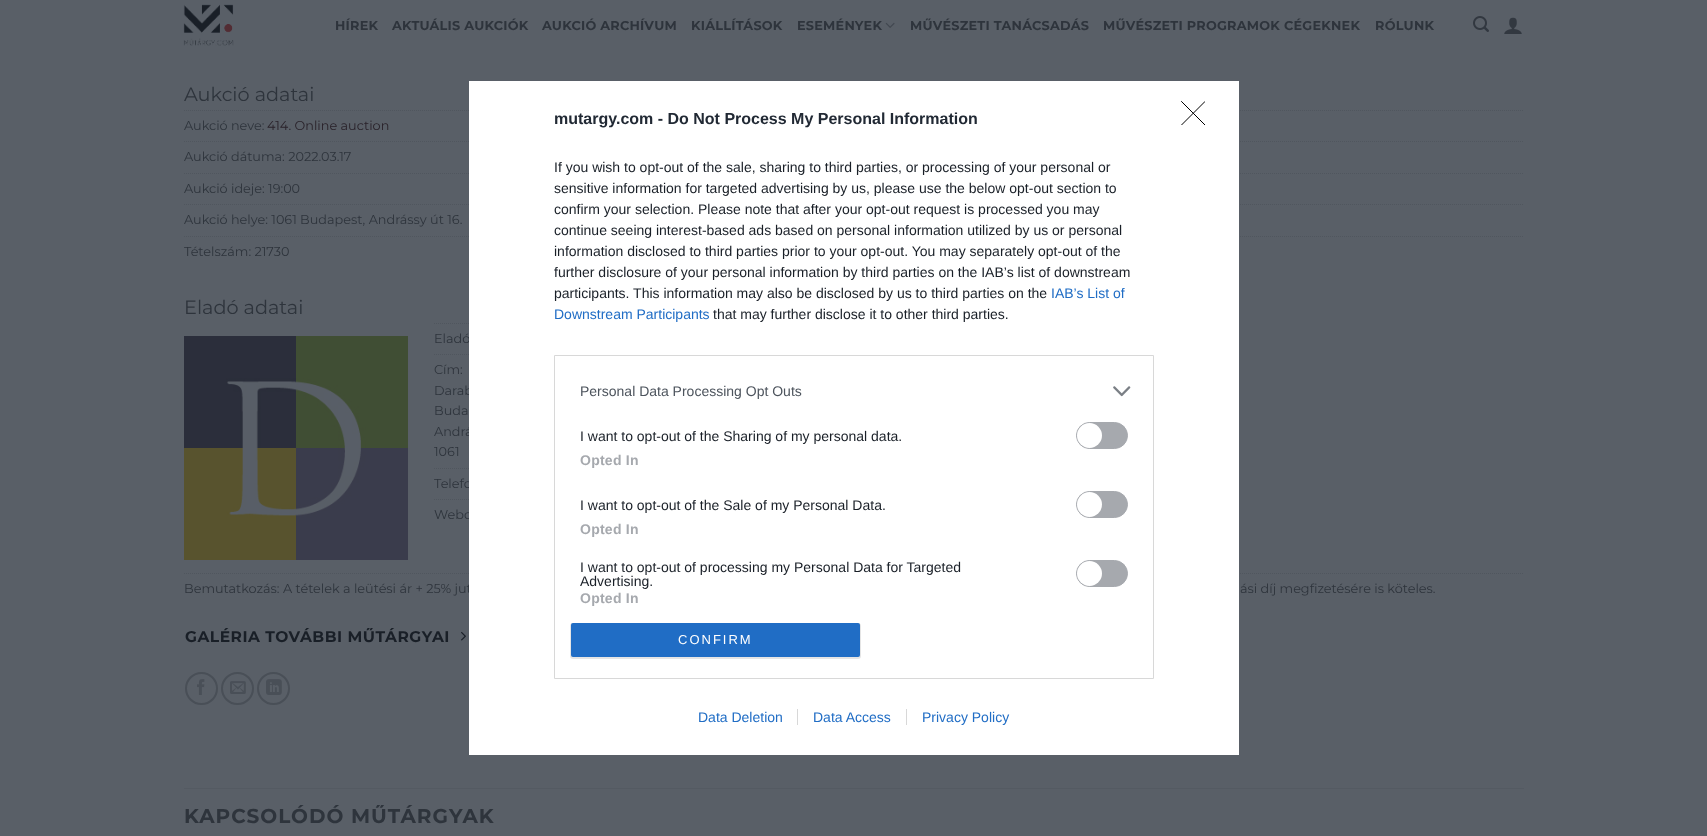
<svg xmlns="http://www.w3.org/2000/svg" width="1707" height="836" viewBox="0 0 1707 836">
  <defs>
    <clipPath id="clip1"><path d="M1181 101h24v24H1181z"/></clipPath>
  </defs>
  <rect width="100%" height="100%" fill="#595f67"/>
  <image x="183" y="4" width="51" height="42" href="img/1.png"/>
  <image x="885" y="22" width="10" height="6" href="img/2.png"/>
  <image x="1473" y="16" width="16" height="16" href="img/3.png"/>
  <image x="1504" y="17" width="18" height="17" href="img/4.png"/>
  <path d="M184 110.5H1524" fill="none" stroke="#50565e" stroke-dasharray="1 1"/>
  <path d="M184 141.5H1524" fill="none" stroke="#50565e" stroke-dasharray="1 1"/>
  <path d="M184 173.5H1524" fill="none" stroke="#50565e" stroke-dasharray="1 1"/>
  <path d="M184 204.5H1524" fill="none" stroke="#50565e" stroke-dasharray="1 1"/>
  <path d="M184 236.5H1524" fill="none" stroke="#50565e" stroke-dasharray="1 1"/>
  <image x="184" y="336" width="224" height="224" href="img/5.png"/>
  <path d="M434 323.5H754" fill="none" stroke="#50565e" stroke-dasharray="1 1"/>
  <path d="M434 354.5H754" fill="none" stroke="#50565e" stroke-dasharray="1 1"/>
  <path d="M434 468.5H754" fill="none" stroke="#50565e" stroke-dasharray="1 1"/>
  <path d="M434 499.5H754" fill="none" stroke="#50565e" stroke-dasharray="1 1"/>
  <path d="M184 573.5H1524" fill="none" stroke="#50565e" stroke-dasharray="1 1"/>
  <image x="461" y="631" width="5" height="10" href="img/6.png"/>
  <circle cx="201.5" cy="688.5" r="15.5" fill="none" stroke="#494f57" stroke-width="2"/>
  <image x="197" y="679" width="8" height="16" href="img/7.png"/>
  <circle cx="237.5" cy="688.5" r="15.5" fill="none" stroke="#494f57" stroke-width="2"/>
  <image x="230" y="681" width="16" height="13" href="img/8.png"/>
  <circle cx="273.5" cy="688.5" r="15.5" fill="none" stroke="#494f57" stroke-width="2"/>
  <image x="266" y="679" width="16" height="16" href="img/9.png"/>
  <path d="M184 788h1340v1H184z" fill="#545a62"/>
  <g font-family="Montserrat" font-size="12.8" font-weight="bold" letter-spacing="0.25" fill="#2e343c">
    <text x="335" y="30">HÍREK</text>
    <text x="392" y="30">AKTUÁLIS AUKCIÓK</text>
    <text x="542" y="30">AUKCIÓ ARCHÍVUM</text>
    <text x="691" y="30">KIÁLLÍTÁSOK</text>
    <text x="797" y="30">ESEMÉNYEK</text>
    <text x="910" y="30">MŰVÉSZETI TANÁCSADÁS</text>
    <text x="1103" y="30">MŰVÉSZETI PROGRAMOK CÉGEKNEK</text>
    <text x="1375" y="30">RÓLUNK</text>
  </g>
  <text x="184" y="101" font-family="Montserrat" font-size="19.25" fill="#2e343c">Aukció adatai</text>
  <text x="184" y="130" font-family="Montserrat" font-size="12.8" fill="#2e343c">Aukció neve:</text>
  <text x="267" y="130" font-family="Montserrat" font-size="12.8" fill="#29222a">414. Online auction</text>
  <g font-family="Montserrat" font-size="12.8" fill="#2e343c">
    <text x="184" y="161">Aukció dátuma: 2022.03.17</text>
    <text x="184" y="193">Aukció ideje: 19:00</text>
    <text x="184" y="224">Aukció helye: 1061 Budapest, Andrássy út 16.</text>
    <text x="184" y="256">Tételszám: 21730</text>
  </g>
  <text x="184" y="314" font-family="Montserrat" font-size="19.25" fill="#2e343c">Eladó adatai</text>
  <g font-family="Montserrat" font-size="12.8" fill="#2e343c">
    <text x="434" y="343">Eladó</text>
    <text x="434" y="374">Cím:</text>
    <text x="434" y="395">Darab</text>
    <text x="434" y="415">Buda</text>
    <text x="434" y="436">Andrá</text>
    <text x="434" y="456">1061</text>
    <text x="434" y="488">Telefo</text>
    <text x="434" y="519">Webo</text>
    <text x="184" y="593">Bemutatkozás: A tételek a leütési ár + 25% jut</text>
    <text x="1240" y="593">ási díj megfizetésére is köteles.</text>
  </g>
  <text x="185" y="642" font-family="Montserrat" font-size="15.5" font-weight="bold" letter-spacing="0.5" fill="#191f27">GALÉRIA TOVÁBBI MŰTÁRGYAI</text>
  <text x="184" y="823" font-family="Montserrat" font-size="20" font-weight="bold" letter-spacing="1" fill="#2e343c">KAPCSOLÓDÓ MŰTÁRGYAK</text>
  <path d="M469 81h770v674H469z" fill="#fff"/>
  <text x="554" y="124" font-family="Liberation Sans" font-size="16" font-weight="bold" fill="#212934">mutargy.com - Do Not Process My Personal Information</text>
  <g font-family="Liberation Sans" font-size="14" fill="#191f27">
    <text x="554" y="172">If you wish to opt-out of the sale, sharing to third parties, or processing of your personal or</text>
    <text x="554" y="193">sensitive information for targeted advertising by us, please use the below opt-out section to</text>
    <text x="554" y="214">confirm your selection. Please note that after your opt-out request is processed you may</text>
    <text x="554" y="235">continue seeing interest-based ads based on personal information utilized by us or personal</text>
    <text x="554" y="256">information disclosed to third parties prior to your opt-out. You may separately opt-out of the</text>
    <text x="554" y="277">further disclosure of your personal information by third parties on the IAB’s list of downstream</text>
    <text x="554" y="298">participants. This information may also be disclosed by us to third parties on the</text>
  </g>
  <g font-family="Liberation Sans" font-size="14" fill="#206dc5">
    <text x="1051" y="298">IAB’s List of</text>
    <text x="554" y="319">Downstream Participants</text>
  </g>
  <text x="713" y="319" font-family="Liberation Sans" font-size="14" fill="#191f27">that may further disclose it to other third parties.</text>
  <path d="M554.5 355.5h599v323H554.5z" fill="none" stroke="#d8d8d8"/>
  <text x="580" y="396" font-family="Liberation Sans" font-size="14" fill="#4d545d">Personal Data Processing Opt Outs</text>
  <image x="1113" y="386" width="18" height="11" href="img/10.png"/>
  <text x="580" y="441" font-family="Liberation Sans" font-size="14" fill="#191f27">I want to opt-out of the Sharing of my personal data.</text>
  <rect x="1076.5" y="422.5" width="51" height="26" rx="13" fill="#a6a9ae" stroke="#a6a9ae"/>
  <circle cx="1089.5" cy="435.5" r="12.5" fill="#fff"/>
  <text x="580" y="465" font-family="Liberation Sans" font-size="14" font-weight="bold" letter-spacing="0.25" fill="#a6a9ae">Opted In</text>
  <text x="580" y="510" font-family="Liberation Sans" font-size="14" fill="#191f27">I want to opt-out of the Sale of my Personal Data.</text>
  <rect x="1076.5" y="491.5" width="51" height="26" rx="13" fill="#a6a9ae" stroke="#a6a9ae"/>
  <circle cx="1089.5" cy="504.5" r="12.5" fill="#fff"/>
  <text x="580" y="534" font-family="Liberation Sans" font-size="14" font-weight="bold" letter-spacing="0.25" fill="#a6a9ae">Opted In</text>
  <g font-family="Liberation Sans" font-size="14" fill="#191f27">
    <text x="580" y="572">I want to opt-out of processing my Personal Data for Targeted</text>
    <text x="580" y="586">Advertising.</text>
  </g>
  <rect x="1076.5" y="560.5" width="51" height="26" rx="13" fill="#a6a9ae" stroke="#a6a9ae"/>
  <circle cx="1089.5" cy="573.5" r="12.5" fill="#fff"/>
  <text x="580" y="603" font-family="Liberation Sans" font-size="14" font-weight="bold" letter-spacing="0.25" fill="#a6a9ae">Opted In</text>
  <rect x="570" y="623" width="291" height="36" rx="3" fill="#0000001a" filter="blur(0.5px)"/>
  <rect x="571" y="623" width="289" height="34" rx="2" fill="#206dc5"/>
  <text x="678" y="644" font-family="Liberation Sans" font-size="13" letter-spacing="2" fill="#fff">CONFIRM</text>
  <g clip-path="url(#clip1)">
    <path d="M1181.5 101.5L1205 125M1205 101.5L1181.5 125" fill="none" stroke="#000" stroke-linecap="round" stroke-linejoin="round"/>
  </g>
  <g font-family="Liberation Sans" font-size="14" fill="#206dc5">
    <text x="698" y="722">Data Deletion</text>
    <text x="813" y="722">Data Access</text>
  </g>
  <path d="M797 709h1v16H797z" fill="#d8d8d8"/>
  <text x="922" y="722" font-family="Liberation Sans" font-size="14" fill="#206dc5">Privacy Policy</text>
  <path d="M906 709h1v16H906z" fill="#d8d8d8"/>
</svg>
